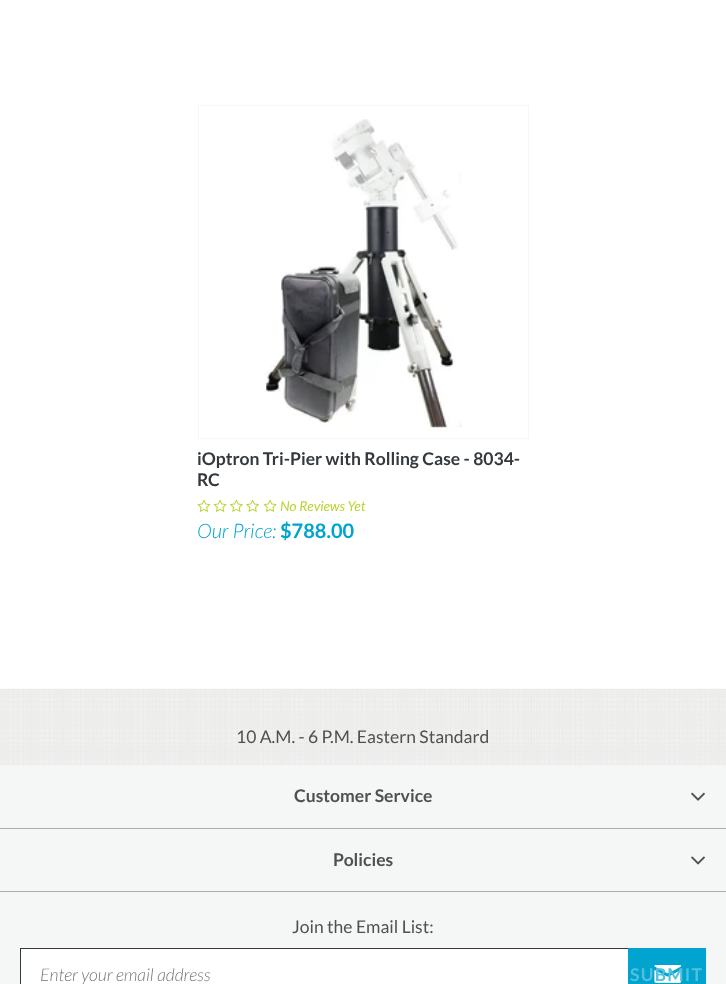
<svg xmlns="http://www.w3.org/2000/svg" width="726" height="984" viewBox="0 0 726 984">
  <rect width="100%" height="100%" fill="#fff"/>
  <path d="M198.5 105.5h330v333H198.5z" fill="none" stroke="#f5f7f6"/>
  <image x="265" y="119" width="197" height="312" href="img/1.png"/>
  <image x="197" y="499" width="14" height="13" href="img/2.png"/>
  <image x="213" y="499" width="14" height="13" href="img/3.png"/>
  <image x="230" y="499" width="13" height="13" href="img/4.png"/>
  <image x="246" y="499" width="13" height="13" href="img/5.png"/>
  <image x="263" y="499" width="14" height="13" href="img/3.png"/>
  <path d="M0 765h726v219H0z" fill="#f5f7f6"/>
  <image x="0" y="688" width="726" height="77" href="img/6.png"/>
  <path d="M0 828h726v1H0z" fill="#acacac"/>
  <image x="691" y="792" width="14" height="9" href="img/7.png"/>
  <path d="M0 891h726v1H0z" fill="#acacac"/>
  <image x="691" y="856" width="14" height="9" href="img/8.png"/>
  <path d="M21 949h607v35H21z" fill="#fff"/>
  <path d="M20 948h608v1H20z" fill="#34393e"/>
  <path d="M20 948h1v36H20z" fill="#34393e"/>
  <path d="M628 948h78v36H628z" fill="#00a4ce"/>
  <image x="654" y="965" width="27" height="18" href="img/9.png"/>
  <g font-family="Lato" font-size="17.5" font-weight="bold" fill="#34393e">
    <text x="197" y="465">iOptron Tri-Pier with Rolling Case - 8034-</text>
    <text x="197" y="486">RC</text>
  </g>
  <text x="280" y="511" font-family="Lato" font-size="13.75" font-style="italic" fill="#b8d433">No Reviews Yet</text>
  <text x="197" y="538" font-family="Lato" font-size="20" font-weight="300" font-style="italic" fill="#00a4ce">Our Price:</text>
  <text x="280" y="538" font-family="Lato" font-size="20" font-weight="bold" fill="#00a4ce">$788.00</text>
  <text x="236" y="743" font-family="Lato" font-size="17.5" fill="#50514e">10 A.M. - 6 P.M. Eastern Standard</text>
  <g font-family="Lato" font-size="17.5" font-weight="bold" fill="#50514e">
    <text x="294" y="802">Customer Service</text>
    <text x="333" y="866">Policies</text>
  </g>
  <text x="292" y="933" font-family="Lato" font-size="17.5" fill="#50514e">Join the Email List:</text>
  <text x="40" y="981" font-family="Lato" font-size="17.5" font-weight="300" font-style="italic" fill="#757575">Enter your email address</text>
  <text x="630" y="981" font-family="Lato" font-size="17.5" font-weight="bold" letter-spacing="1.25" fill="#51c1de">SUBMIT</text>
</svg>
